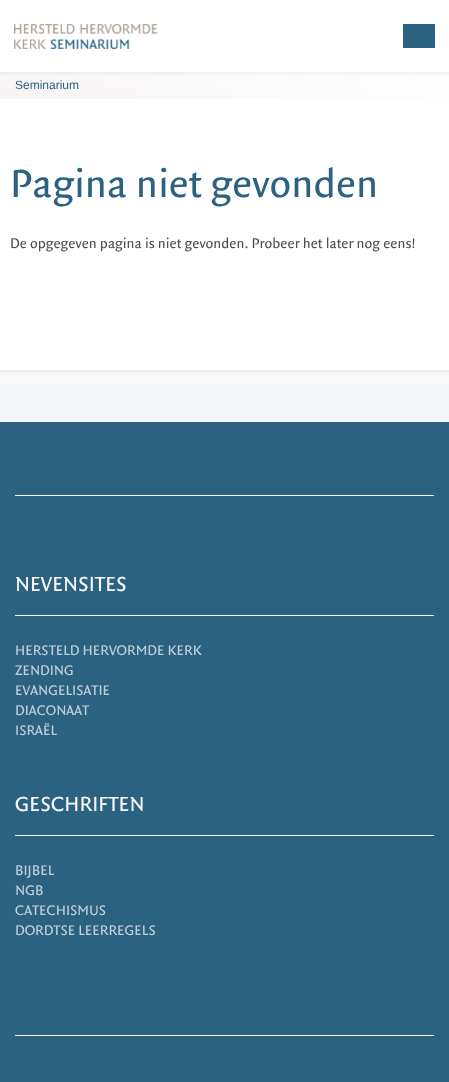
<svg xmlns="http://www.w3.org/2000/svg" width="449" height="1082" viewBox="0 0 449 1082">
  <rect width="100%" height="100%" fill="#fff"/>
  <image x="14" y="24" width="144" height="25" href="img/1.png"/>
  <path d="M403 24h32v24H403z" fill="#2b6281"/>
  <image x="0" y="72" width="449" height="27" href="img/2.png"/>
  <image x="0" y="370" width="449" height="52" href="img/3.png"/>
  <path d="M0 422h449v660H0z" fill="#2b6281"/>
  <path d="M15 495h419v1H15z" fill="#f9f8f7"/>
  <path d="M15 615h419v1H15z" fill="#f9f8f7"/>
  <path d="M15 835h419v1H15z" fill="#f9f8f7"/>
  <path d="M15 1035h419v1H15z" fill="#f9f8f7"/>
  <text x="15" y="89" font-family="Liberation Sans" font-size="12" fill="#2b6281">Seminarium</text>
  <text x="10" y="197" font-family="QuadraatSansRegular" font-size="42" fill="#2b6281">Pagina niet gevonden</text>
  <text x="10" y="248" font-family="QuadraatSansRegular" font-size="15" fill="#4c4e4f">De opgegeven pagina is niet gevonden. Probeer het later nog eens!</text>
  <text x="15" y="591" font-family="QuadraatSansRegular" font-size="22" fill="#f9f8f7">NEVENSITES</text>
  <g font-family="QuadraatSansRegular" font-size="15" fill="#bfd0d9">
    <text x="15" y="655">HERSTELD HERVORMDE KERK</text>
    <text x="15" y="675">ZENDING</text>
    <text x="15" y="695">EVANGELISATIE</text>
    <text x="15" y="715">DIACONAAT</text>
    <text x="15" y="735">ISRAËL</text>
  </g>
  <text x="15" y="811" font-family="QuadraatSansRegular" font-size="22" fill="#f9f8f7">GESCHRIFTEN</text>
  <g font-family="QuadraatSansRegular" font-size="15" fill="#bfd0d9">
    <text x="15" y="875">BIJBEL</text>
    <text x="15" y="895">NGB</text>
    <text x="15" y="915">CATECHISMUS</text>
    <text x="15" y="935">DORDTSE LEERREGELS</text>
  </g>
</svg>
